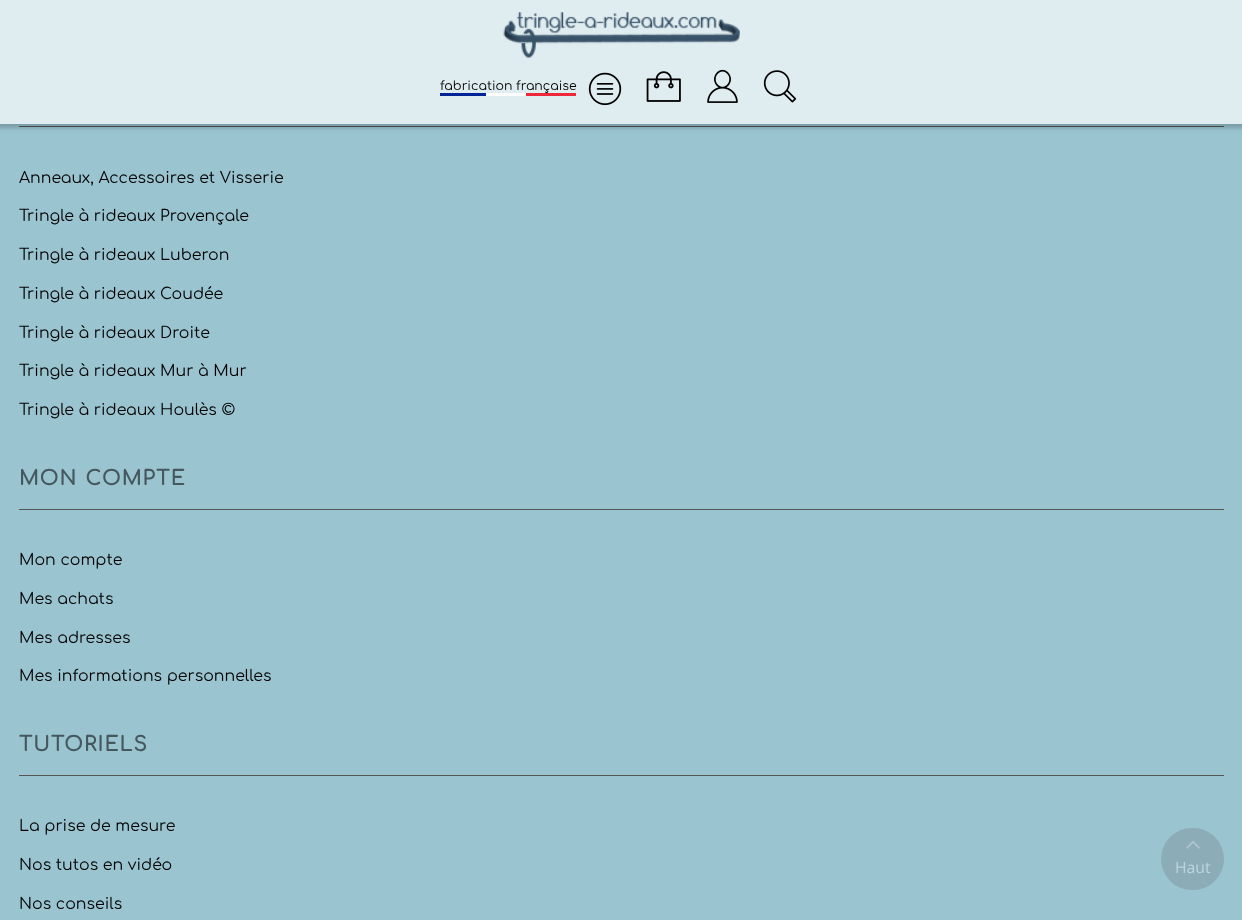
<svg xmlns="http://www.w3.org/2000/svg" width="1242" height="920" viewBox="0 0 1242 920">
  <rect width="100%" height="100%" fill="#9ac4d0"/>
  <path d="M19 126h1205v1H19z" fill="#555"/>
  <path d="M-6 4h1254v124H-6z" fill="#00000033" filter="blur(2px)"/>
  <path d="M0 0h1242v124H0z" fill="#e0edf0"/>
  <image x="503" y="12" width="237" height="47" href="img/1.png"/>
  <path d="M440 93h46v3H440z" fill="#002395"/>
  <path d="M486 93h40v3H486z" fill="#fff"/>
  <path d="M526 93h50v3H526z" fill="#ed2939"/>
  <image x="588" y="72" width="34" height="34" href="img/2.png"/>
  <image x="646" y="71" width="35" height="31" href="img/3.png"/>
  <image x="707" y="69" width="31" height="34" href="img/4.png"/>
  <image x="763" y="70" width="34" height="33" href="img/5.png"/>
  <path d="M19 509h1205v1H19z" fill="#555"/>
  <path d="M19 775h1205v1H19z" fill="#555"/>
  <rect x="1161" y="828" width="63" height="62" rx="31" fill="#8cacb7"/>
  <image x="1186" y="840" width="14" height="9" href="img/6.png"/>
  <text x="440" y="90" font-family="Comfortaa" font-size="12.5" fill="#000">fabrication française</text>
  <g font-family="Comfortaa" font-size="15.75" fill="#000">
    <text x="19" y="183">Anneaux, Accessoires et Visserie</text>
    <text x="19" y="221">Tringle à rideaux Provençale</text>
    <text x="19" y="260">Tringle à rideaux Luberon</text>
    <text x="19" y="299">Tringle à rideaux Coudée</text>
    <text x="19" y="338">Tringle à rideaux Droite</text>
    <text x="19" y="376">Tringle à rideaux Mur à Mur</text>
    <text x="19" y="415">Tringle à rideaux Houlès ©</text>
  </g>
  <text x="19" y="485" word-spacing="1" font-family="Comfortaa" font-size="20" font-weight="bold" letter-spacing="1.25" fill="#45585e">MON COMPTE</text>
  <g font-family="Comfortaa" font-size="15.75" fill="#000">
    <text x="19" y="565">Mon compte</text>
    <text x="19" y="604">Mes achats</text>
    <text x="19" y="643">Mes adresses</text>
    <text x="19" y="681">Mes informations personnelles</text>
  </g>
  <text x="19" y="751" font-family="Comfortaa" font-size="20" font-weight="bold" letter-spacing="1.25" fill="#45585e">TUTORIELS</text>
  <g font-family="Comfortaa" font-size="15.75" fill="#000">
    <text x="19" y="831">La prise de mesure</text>
    <text x="19" y="870">Nos tutos en vidéo</text>
    <text x="19" y="909">Nos conseils</text>
  </g>
  <text x="1175" y="873" font-family="Open Sans" font-size="15.75" fill="#b8d6de">Haut</text>
</svg>
